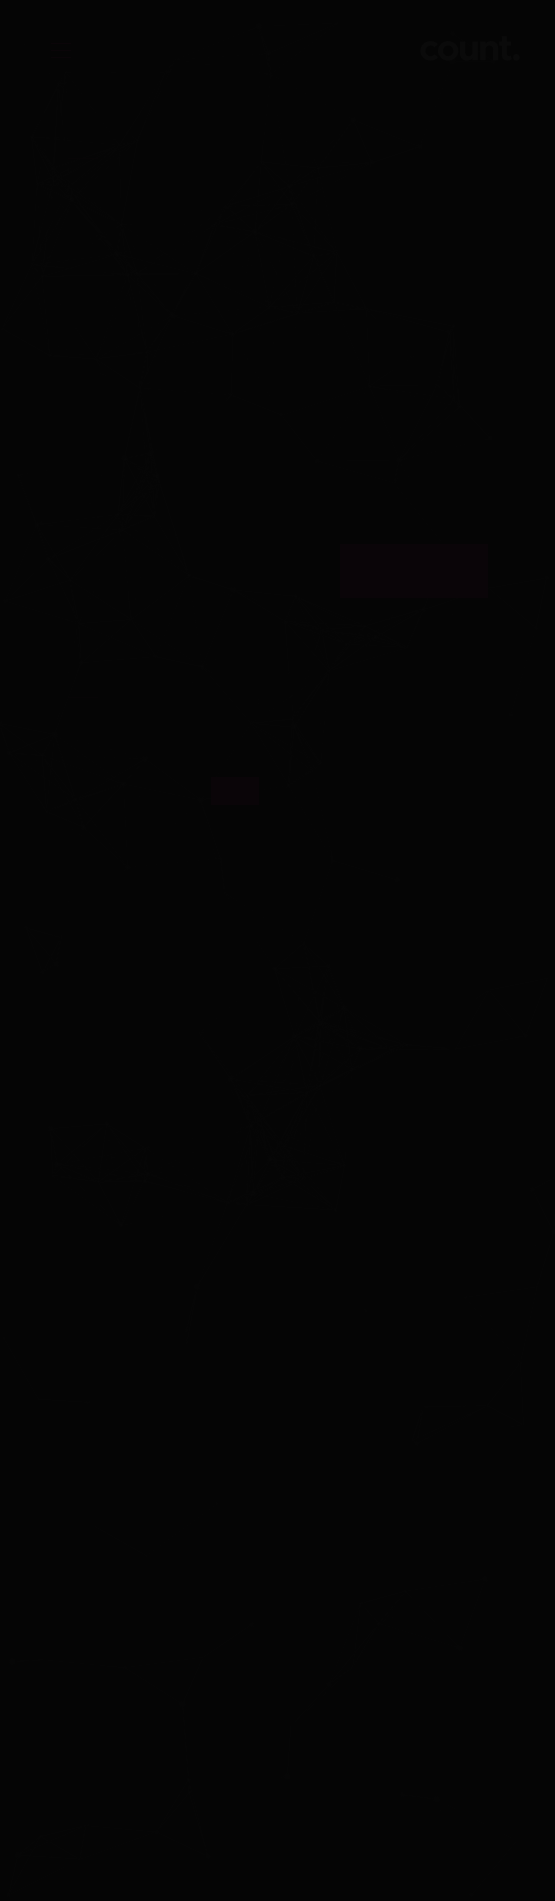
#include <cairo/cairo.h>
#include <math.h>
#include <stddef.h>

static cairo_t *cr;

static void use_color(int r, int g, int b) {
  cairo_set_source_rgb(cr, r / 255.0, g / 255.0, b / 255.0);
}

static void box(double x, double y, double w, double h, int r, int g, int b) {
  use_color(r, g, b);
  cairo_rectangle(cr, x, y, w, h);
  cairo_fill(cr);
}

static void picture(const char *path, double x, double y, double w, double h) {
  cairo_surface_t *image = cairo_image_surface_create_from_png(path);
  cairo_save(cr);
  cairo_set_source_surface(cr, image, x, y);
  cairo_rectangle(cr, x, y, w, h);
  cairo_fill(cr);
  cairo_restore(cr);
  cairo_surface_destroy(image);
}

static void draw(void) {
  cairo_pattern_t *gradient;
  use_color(255, 255, 255);
  cairo_paint(cr);
  gradient = cairo_pattern_create_radial(278, 951, 0, 278, 951, 990);
  cairo_pattern_add_color_stop_rgba(gradient, 0, 0.02, 0.02, 0.02, 1);
  cairo_pattern_add_color_stop_rgba(gradient, 1, 0.02, 0.02, 0.02, 1);
  cairo_set_source(cr, gradient);
  cairo_pattern_destroy(gradient);
  cairo_rectangle(cr, 0, 0, 555, 1901);
  cairo_fill(cr);
  picture("img_01.png", 0, 16, 555, 1881);
  picture("img_02.png", 420, 36, 100, 25);
  cairo_set_source_rgba(cr, 0.039, 0.02, 0.031, 0.6);
  cairo_rectangle(cr, 68, 158, 30, 1);
  cairo_fill(cr);
  box(340, 544, 148, 54, 10, 5, 8);
  cairo_set_source_rgba(cr, 0.039, 0.02, 0.031, 0.6);
  cairo_rectangle(cr, 68, 697, 30, 1);
  cairo_fill(cr);
  box(211, 777, 48, 28, 10, 5, 8);
  box(51, 50, 20, 1, 10, 5, 8);
  box(51, 43, 20, 1, 10, 5, 8);
  box(51, 57, 20, 1, 10, 5, 8);
}

int main(void) {
  cairo_surface_t *surface = cairo_image_surface_create(CAIRO_FORMAT_RGB24, 555, 1901);
  cr = cairo_create(surface);
  cairo_font_options_t *options = cairo_font_options_create();
  cairo_font_options_set_hint_metrics(options, CAIRO_HINT_METRICS_OFF);
  cairo_font_options_set_hint_style(options, CAIRO_HINT_STYLE_NONE);
  cairo_set_font_options(cr, options);
  cairo_set_miter_limit(cr, 4);
  draw();
  cairo_surface_write_to_png(surface, "out.png");
  cairo_font_options_destroy(options);
  cairo_destroy(cr);
  cairo_surface_destroy(surface);
  return 0;
}
